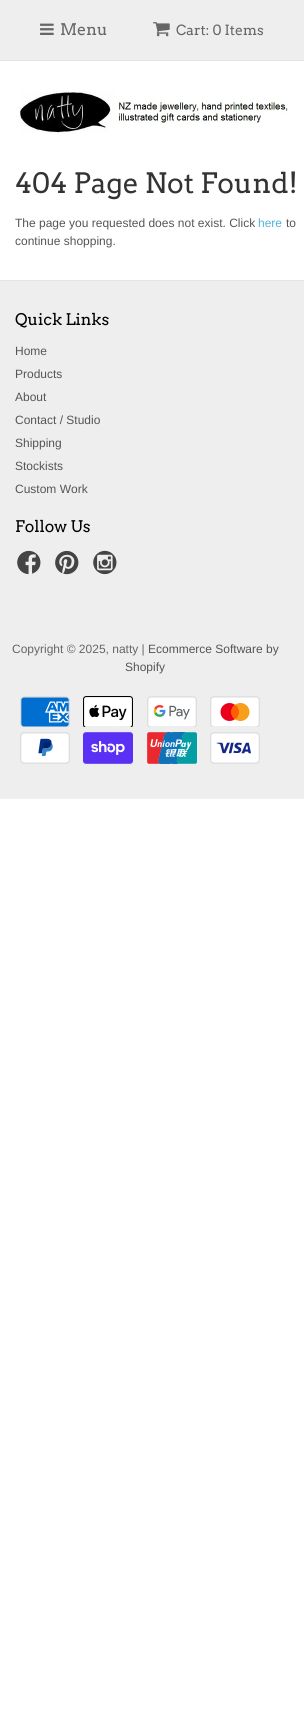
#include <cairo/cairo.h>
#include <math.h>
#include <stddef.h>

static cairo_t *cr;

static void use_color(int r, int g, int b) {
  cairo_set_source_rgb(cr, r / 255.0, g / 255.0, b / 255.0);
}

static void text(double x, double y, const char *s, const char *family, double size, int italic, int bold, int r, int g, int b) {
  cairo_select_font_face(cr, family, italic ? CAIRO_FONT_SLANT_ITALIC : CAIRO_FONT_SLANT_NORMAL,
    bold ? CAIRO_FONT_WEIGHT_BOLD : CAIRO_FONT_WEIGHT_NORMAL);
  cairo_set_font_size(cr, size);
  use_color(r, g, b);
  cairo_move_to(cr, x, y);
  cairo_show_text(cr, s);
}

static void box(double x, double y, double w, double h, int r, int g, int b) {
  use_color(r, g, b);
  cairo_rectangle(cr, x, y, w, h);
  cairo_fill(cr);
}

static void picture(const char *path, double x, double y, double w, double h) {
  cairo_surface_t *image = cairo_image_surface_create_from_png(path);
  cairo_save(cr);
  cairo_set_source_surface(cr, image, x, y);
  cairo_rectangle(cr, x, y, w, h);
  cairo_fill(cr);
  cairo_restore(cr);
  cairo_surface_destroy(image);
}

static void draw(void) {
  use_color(255, 255, 255);
  cairo_paint(cr);
  box(0, 0, 304, 60, 238, 238, 238);
  box(0, 60, 304, 1, 229, 229, 229);
  picture("img_01.png", 40, 23, 14, 12);
  picture("img_02.png", 153, 22, 17, 15);
  picture("img_03.png", 19, 91, 270, 43);
  box(0, 281, 304, 518, 238, 238, 238);
  box(0, 280, 304, 1, 229, 229, 229);
  picture("img_04.png", 17, 550, 24, 25);
  picture("img_05.png", 55, 550, 24, 25);
  picture("img_06.png", 93, 550, 24, 25);
  picture("img_07.png", 20, 696, 50, 31);
  picture("img_08.png", 83, 696, 50, 31);
  picture("img_09.png", 147, 696, 50, 31);
  picture("img_10.png", 210, 696, 50, 31);
  picture("img_11.png", 20, 732, 50, 32);
  picture("img_12.png", 83, 732, 50, 32);
  picture("img_13.png", 147, 732, 50, 32);
  picture("img_14.png", 210, 732, 50, 32);
  text(60, 35, "Menu", "Arvo", 16, 0, 0, 102, 102, 102);
  text(176, 35, "Cart: 0 Items", "Arvo", 14, 0, 0, 102, 102, 102);
  text(15, 193, "404 Page Not Found!", "Arvo", 28, 0, 0, 51, 51, 51);
  text(15, 227, "The page you requested does not exist. Click", "Liberation Sans", 12, 0, 0, 85, 85, 85);
  text(258, 227, "here", "Liberation Sans", 12, 0, 0, 80, 179, 218);
  text(286, 227, "to", "Liberation Sans", 12, 0, 0, 85, 85, 85);
  text(15, 245, "continue shopping.", "Liberation Sans", 12, 0, 0, 85, 85, 85);
  text(15, 325, "Quick Links", "Arvo", 16, 0, 0, 0, 0, 0);
  text(15, 355, "Home", "Liberation Sans", 12, 0, 0, 85, 85, 85);
  text(15, 378, "Products", "Liberation Sans", 12, 0, 0, 85, 85, 85);
  text(15, 401, "About", "Liberation Sans", 12, 0, 0, 85, 85, 85);
  text(15, 424, "Contact / Studio", "Liberation Sans", 12, 0, 0, 85, 85, 85);
  text(15, 447, "Shipping", "Liberation Sans", 12, 0, 0, 85, 85, 85);
  text(15, 470, "Stockists", "Liberation Sans", 12, 0, 0, 85, 85, 85);
  text(15, 493, "Custom Work", "Liberation Sans", 12, 0, 0, 85, 85, 85);
  text(15, 532, "Follow Us", "Arvo", 16, 0, 0, 0, 0, 0);
  text(12, 653, "Copyright © 2025, natty |", "Liberation Sans", 12, 0, 0, 102, 102, 102);
  text(148, 653, "Ecommerce Software by", "Liberation Sans", 12, 0, 0, 85, 85, 85);
  text(125, 671, "Shopify", "Liberation Sans", 12, 0, 0, 85, 85, 85);
}

int main(void) {
  cairo_surface_t *surface = cairo_image_surface_create(CAIRO_FORMAT_RGB24, 304, 1719);
  cr = cairo_create(surface);
  cairo_font_options_t *options = cairo_font_options_create();
  cairo_font_options_set_hint_metrics(options, CAIRO_HINT_METRICS_OFF);
  cairo_font_options_set_hint_style(options, CAIRO_HINT_STYLE_NONE);
  cairo_set_font_options(cr, options);
  cairo_set_miter_limit(cr, 4);
  draw();
  cairo_surface_write_to_png(surface, "out.png");
  cairo_font_options_destroy(options);
  cairo_destroy(cr);
  cairo_surface_destroy(surface);
  return 0;
}
